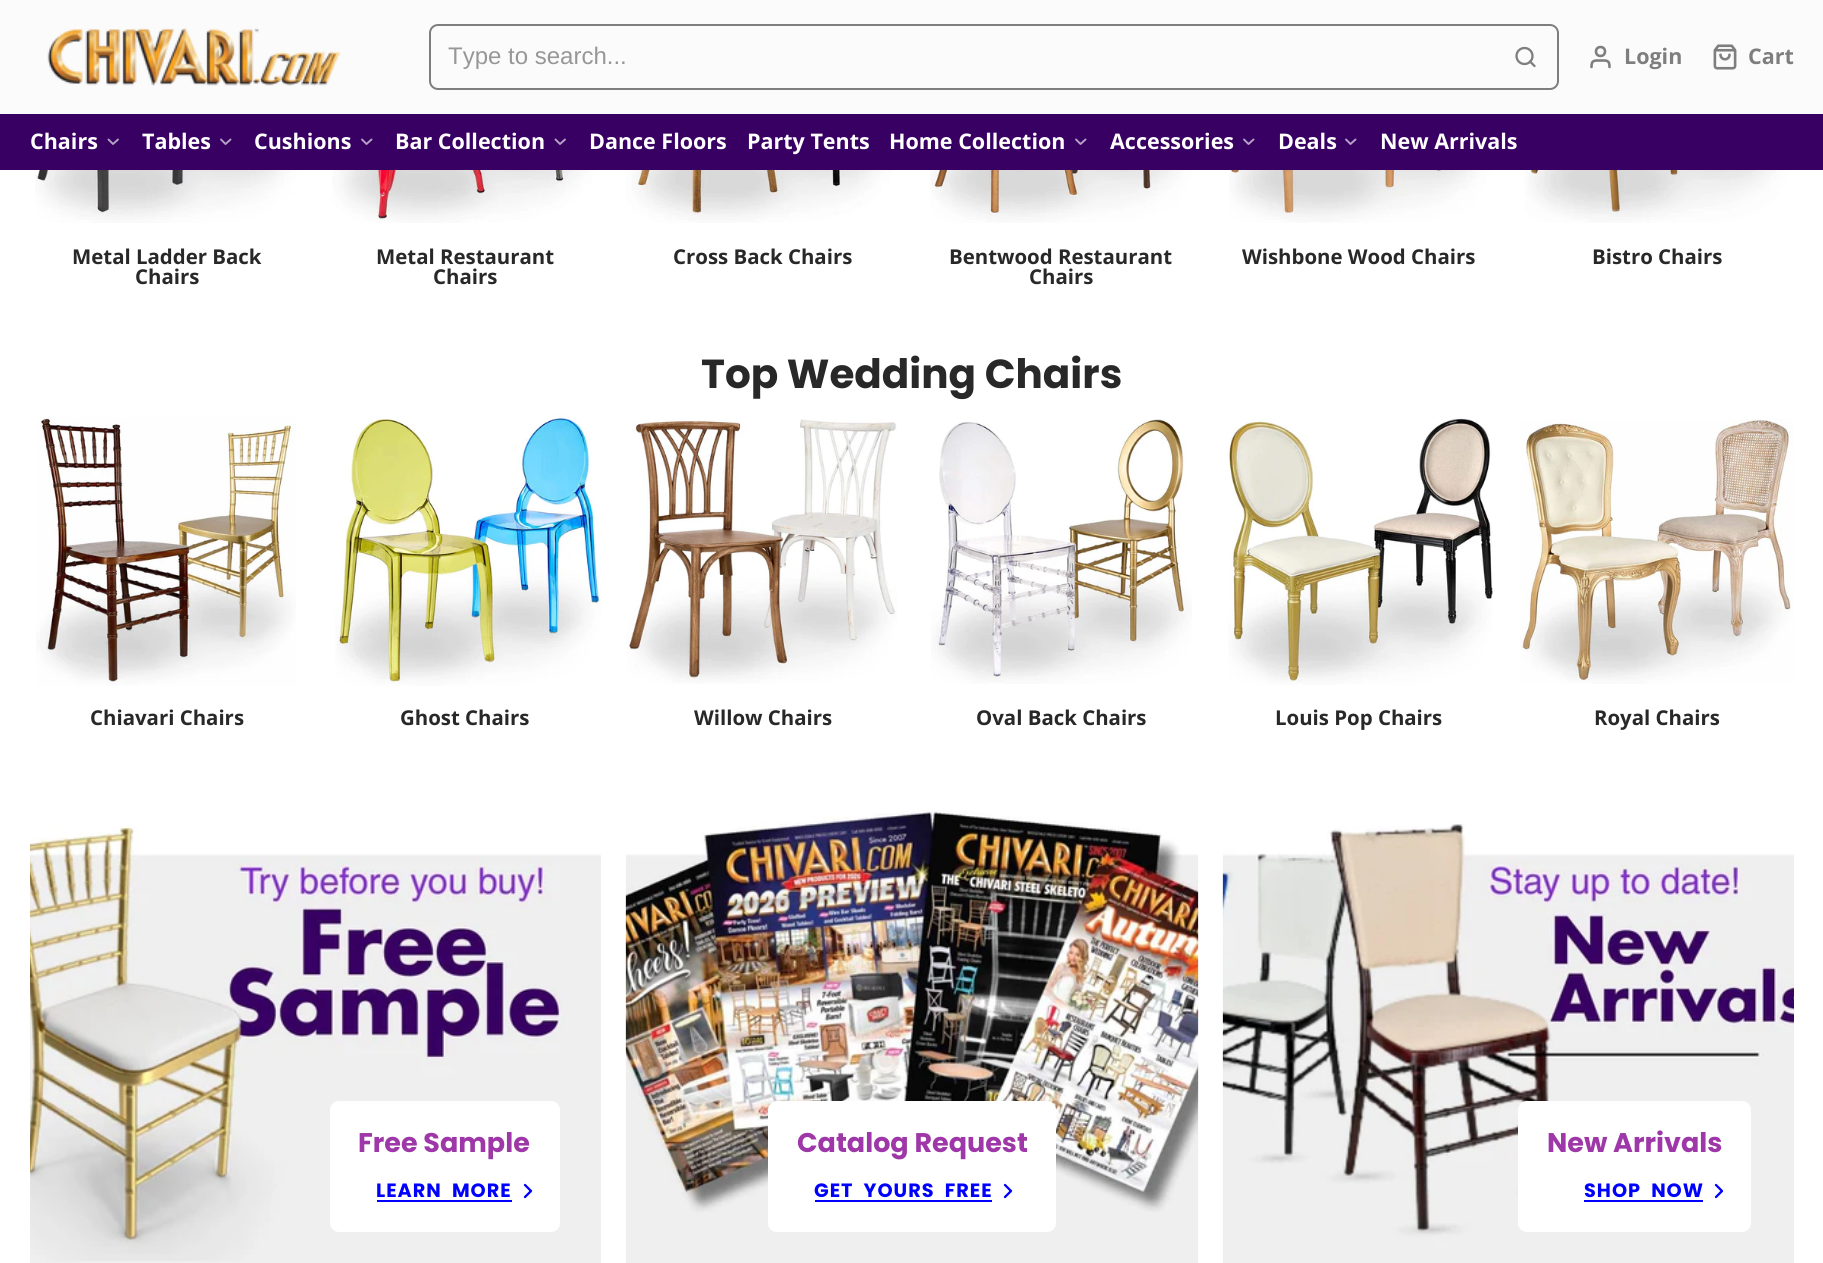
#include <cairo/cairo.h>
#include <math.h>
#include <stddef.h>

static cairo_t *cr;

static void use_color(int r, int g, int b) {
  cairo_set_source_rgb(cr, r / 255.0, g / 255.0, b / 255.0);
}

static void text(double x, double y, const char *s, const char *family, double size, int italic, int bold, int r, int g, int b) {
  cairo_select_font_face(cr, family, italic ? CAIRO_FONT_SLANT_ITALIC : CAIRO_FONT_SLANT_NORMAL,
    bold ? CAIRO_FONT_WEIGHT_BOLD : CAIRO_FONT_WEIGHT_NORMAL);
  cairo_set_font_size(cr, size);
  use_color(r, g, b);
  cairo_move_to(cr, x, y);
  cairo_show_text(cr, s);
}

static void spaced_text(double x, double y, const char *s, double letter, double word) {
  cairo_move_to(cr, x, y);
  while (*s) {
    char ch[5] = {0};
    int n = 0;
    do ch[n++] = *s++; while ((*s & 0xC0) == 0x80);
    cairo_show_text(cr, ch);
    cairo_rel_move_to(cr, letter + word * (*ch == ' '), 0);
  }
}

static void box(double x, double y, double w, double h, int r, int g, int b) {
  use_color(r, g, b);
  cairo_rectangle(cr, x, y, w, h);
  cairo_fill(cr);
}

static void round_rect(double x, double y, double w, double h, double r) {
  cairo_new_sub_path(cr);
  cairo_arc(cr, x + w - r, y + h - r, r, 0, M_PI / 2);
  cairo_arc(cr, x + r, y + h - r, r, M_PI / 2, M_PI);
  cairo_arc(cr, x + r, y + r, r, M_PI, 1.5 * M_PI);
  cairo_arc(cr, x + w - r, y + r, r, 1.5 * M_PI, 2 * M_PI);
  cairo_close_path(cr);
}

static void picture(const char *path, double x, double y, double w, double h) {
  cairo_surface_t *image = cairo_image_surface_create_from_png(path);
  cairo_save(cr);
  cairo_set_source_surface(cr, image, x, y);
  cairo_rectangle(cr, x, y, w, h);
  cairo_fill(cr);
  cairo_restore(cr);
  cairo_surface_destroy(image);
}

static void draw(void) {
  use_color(255, 255, 255);
  cairo_paint(cr);
  box(0, 0, 1823, 114, 251, 251, 251);
  picture("img_01.png", 47, 27, 294, 59);
  round_rect(430, 25, 1128, 64, 8);
  use_color(126, 126, 126);
  cairo_stroke(cr);
  cairo_arc(cr, 1524.5, 56, 8, 0, 2 * M_PI);
  cairo_set_line_width(cr, 2.3);
  cairo_stroke(cr);
  cairo_new_path(cr);
  cairo_move_to(cr, 1534.5, 66);
  cairo_line_to(cr, 1530, 61.5);
  cairo_set_line_cap(cr, CAIRO_LINE_CAP_ROUND);
  cairo_set_line_join(cr, CAIRO_LINE_JOIN_ROUND);
  cairo_stroke(cr);
  cairo_new_path(cr);
  cairo_move_to(cr, 1609.5, 67);
  cairo_curve_to(cr, 1609.5, 60, 1607, 60.5, 1600.5, 60.5);
  cairo_curve_to(cr, 1594, 60.5, 1591.5, 60, 1591.5, 67);
  cairo_set_line_width(cr, 2.6);
  cairo_stroke(cr);
  cairo_arc(cr, 1600.5, 51.5, 4.5, 0, 2 * M_PI);
  cairo_set_line_cap(cr, CAIRO_LINE_CAP_BUTT);
  cairo_set_line_join(cr, CAIRO_LINE_JOIN_MITER);
  cairo_stroke(cr);
  picture("img_02.png", 1713, 44, 24, 26);
  box(0, 114, 1823, 56, 56, 0, 99);
  cairo_new_path(cr);
  cairo_move_to(cr, 108.5, 139.5);
  cairo_line_to(cr, 113, 144);
  cairo_line_to(cr, 118, 139.5);
  use_color(183, 163, 199);
  cairo_set_line_width(cr, 1.9);
  cairo_set_line_cap(cr, CAIRO_LINE_CAP_ROUND);
  cairo_set_line_join(cr, CAIRO_LINE_JOIN_ROUND);
  cairo_stroke(cr);
  cairo_new_path(cr);
  cairo_move_to(cr, 221, 139.5);
  cairo_line_to(cr, 225.5, 144);
  cairo_line_to(cr, 230.5, 139.5);
  cairo_stroke(cr);
  cairo_new_path(cr);
  cairo_move_to(cr, 362, 139.5);
  cairo_line_to(cr, 366.5, 144);
  cairo_line_to(cr, 371.5, 139.5);
  cairo_stroke(cr);
  cairo_new_path(cr);
  cairo_move_to(cr, 555.5, 139.5);
  cairo_line_to(cr, 560, 144);
  cairo_line_to(cr, 565, 139.5);
  cairo_stroke(cr);
  cairo_new_path(cr);
  cairo_move_to(cr, 1076, 139.5);
  cairo_line_to(cr, 1080.5, 144);
  cairo_line_to(cr, 1085.5, 139.5);
  cairo_stroke(cr);
  cairo_new_path(cr);
  cairo_move_to(cr, 1244, 139.5);
  cairo_line_to(cr, 1248.5, 144);
  cairo_line_to(cr, 1253.5, 139.5);
  cairo_stroke(cr);
  cairo_new_path(cr);
  cairo_move_to(cr, 1346, 139.5);
  cairo_line_to(cr, 1350.5, 144);
  cairo_line_to(cr, 1355.5, 139.5);
  cairo_stroke(cr);
  picture("img_03.png", 35, 170, 263, 53);
  picture("img_04.png", 332, 170, 265, 53);
  picture("img_05.png", 625, 170, 268, 53);
  picture("img_06.png", 930, 170, 262, 53);
  picture("img_07.png", 1229, 170, 262, 53);
  picture("img_08.png", 1525, 170, 262, 53);
  picture("img_09.png", 36, 417, 260, 269);
  picture("img_10.png", 335, 414, 266, 272);
  picture("img_11.png", 627, 419, 270, 265);
  picture("img_12.png", 931, 419, 261, 265);
  picture("img_13.png", 1228, 418, 265, 267);
  picture("img_14.png", 1520, 419, 274, 265);
  picture("img_15.png", 30, 826, 571, 437);
  use_color(255, 255, 255);
  round_rect(330, 1101, 230, 131, 9);
  cairo_fill(cr);
  box(377, 1200, 135, 2, 0, 0, 255);
  cairo_new_path(cr);
  cairo_move_to(cr, 525, 1197);
  cairo_line_to(cr, 531, 1191);
  cairo_line_to(cr, 525, 1185);
  cairo_set_line_width(cr, 2.3);
  cairo_stroke(cr);
  picture("img_16.png", 625, 810, 574, 453);
  use_color(255, 255, 255);
  round_rect(768, 1101, 288, 131, 9);
  cairo_fill(cr);
  box(815, 1200, 177, 2, 0, 0, 255);
  cairo_new_path(cr);
  cairo_move_to(cr, 1005, 1197);
  cairo_line_to(cr, 1011, 1191);
  cairo_line_to(cr, 1005, 1185);
  cairo_stroke(cr);
  picture("img_17.png", 1222, 822, 572, 441);
  use_color(255, 255, 255);
  round_rect(1518, 1101, 233, 131, 9);
  cairo_fill(cr);
  box(1584, 1200, 119, 2, 0, 0, 255);
  cairo_new_path(cr);
  cairo_move_to(cr, 1716, 1197);
  cairo_line_to(cr, 1722, 1191);
  cairo_line_to(cr, 1716, 1185);
  cairo_stroke(cr);
  text(448, 64, "Type to search...", "Liberation Sans", 24, 0, 0, 151, 151, 151);
  text(1624, 64, "Login", "Open Sans", 21.5, 0, 1, 126, 126, 126);
  text(1748, 64, "Cart", "Open Sans", 21.5, 0, 1, 126, 126, 126);
  text(30, 149, "Chairs", "Open Sans", 21.5, 0, 1, 255, 255, 255);
  text(142, 149, "Tables", "Open Sans", 21.5, 0, 1, 255, 255, 255);
  text(254, 149, "Cushions", "Open Sans", 21.5, 0, 1, 255, 255, 255);
  text(395, 149, "Bar Collection", "Open Sans", 21.5, 0, 1, 255, 255, 255);
  text(589, 149, "Dance Floors", "Open Sans", 21.5, 0, 1, 255, 255, 255);
  text(747, 149, "Party Tents", "Open Sans", 21.5, 0, 1, 255, 255, 255);
  text(889, 149, "Home Collection", "Open Sans", 21.5, 0, 1, 255, 255, 255);
  text(1110, 149, "Accessories", "Open Sans", 21.5, 0, 1, 255, 255, 255);
  text(1278, 149, "Deals", "Open Sans", 21.5, 0, 1, 255, 255, 255);
  text(1380, 149, "New Arrivals", "Open Sans", 21.5, 0, 1, 255, 255, 255);
  text(72, 264, "Metal Ladder Back", "Open Sans", 20.4, 0, 1, 40, 40, 40);
  text(135, 284, "Chairs", "Open Sans", 20.4, 0, 1, 40, 40, 40);
  text(376, 264, "Metal Restaurant", "Open Sans", 20.4, 0, 1, 40, 40, 40);
  text(433, 284, "Chairs", "Open Sans", 20.4, 0, 1, 40, 40, 40);
  text(673, 264, "Cross Back Chairs", "Open Sans", 20.4, 0, 1, 40, 40, 40);
  text(949, 264, "Bentwood Restaurant", "Open Sans", 20.4, 0, 1, 40, 40, 40);
  text(1029, 284, "Chairs", "Open Sans", 20.4, 0, 1, 40, 40, 40);
  text(1242, 264, "Wishbone Wood Chairs", "Open Sans", 20.4, 0, 1, 40, 40, 40);
  text(1592, 264, "Bistro Chairs", "Open Sans", 20.4, 0, 1, 40, 40, 40);
  text(701, 388, "Top Wedding Chairs", "Poppins", 40.5, 0, 1, 40, 40, 40);
  text(90, 725, "Chiavari Chairs", "Open Sans", 20.4, 0, 1, 40, 40, 40);
  text(400, 725, "Ghost Chairs", "Open Sans", 20.4, 0, 1, 40, 40, 40);
  text(694, 725, "Willow Chairs", "Open Sans", 20.4, 0, 1, 40, 40, 40);
  text(976, 725, "Oval Back Chairs", "Open Sans", 20.4, 0, 1, 40, 40, 40);
  text(1275, 725, "Louis Pop Chairs", "Open Sans", 20.4, 0, 1, 40, 40, 40);
  text(1594, 725, "Royal Chairs", "Open Sans", 20.4, 0, 1, 40, 40, 40);
  text(358, 1152, "Free Sample", "Poppins", 27, 0, 1, 158, 55, 167);
  cairo_set_font_size(cr, 19.25);
  use_color(0, 0, 255);
  spaced_text(376, 1197, "LEARN MORE", 1, 5);
  text(797, 1152, "Catalog Request", "Poppins", 27, 0, 1, 158, 55, 167);
  cairo_set_font_size(cr, 19.25);
  use_color(0, 0, 255);
  spaced_text(814, 1197, "GET YOURS FREE", 1, 5);
  text(1547, 1152, "New Arrivals", "Poppins", 27, 0, 1, 158, 55, 167);
  cairo_set_font_size(cr, 19.25);
  use_color(0, 0, 255);
  spaced_text(1584, 1197, "SHOP NOW", 1, 5);
}

int main(void) {
  cairo_surface_t *surface = cairo_image_surface_create(CAIRO_FORMAT_RGB24, 1823, 1263);
  cr = cairo_create(surface);
  cairo_font_options_t *options = cairo_font_options_create();
  cairo_font_options_set_hint_metrics(options, CAIRO_HINT_METRICS_OFF);
  cairo_font_options_set_hint_style(options, CAIRO_HINT_STYLE_NONE);
  cairo_set_font_options(cr, options);
  cairo_set_miter_limit(cr, 4);
  draw();
  cairo_surface_write_to_png(surface, "out.png");
  cairo_font_options_destroy(options);
  cairo_destroy(cr);
  cairo_surface_destroy(surface);
  return 0;
}
